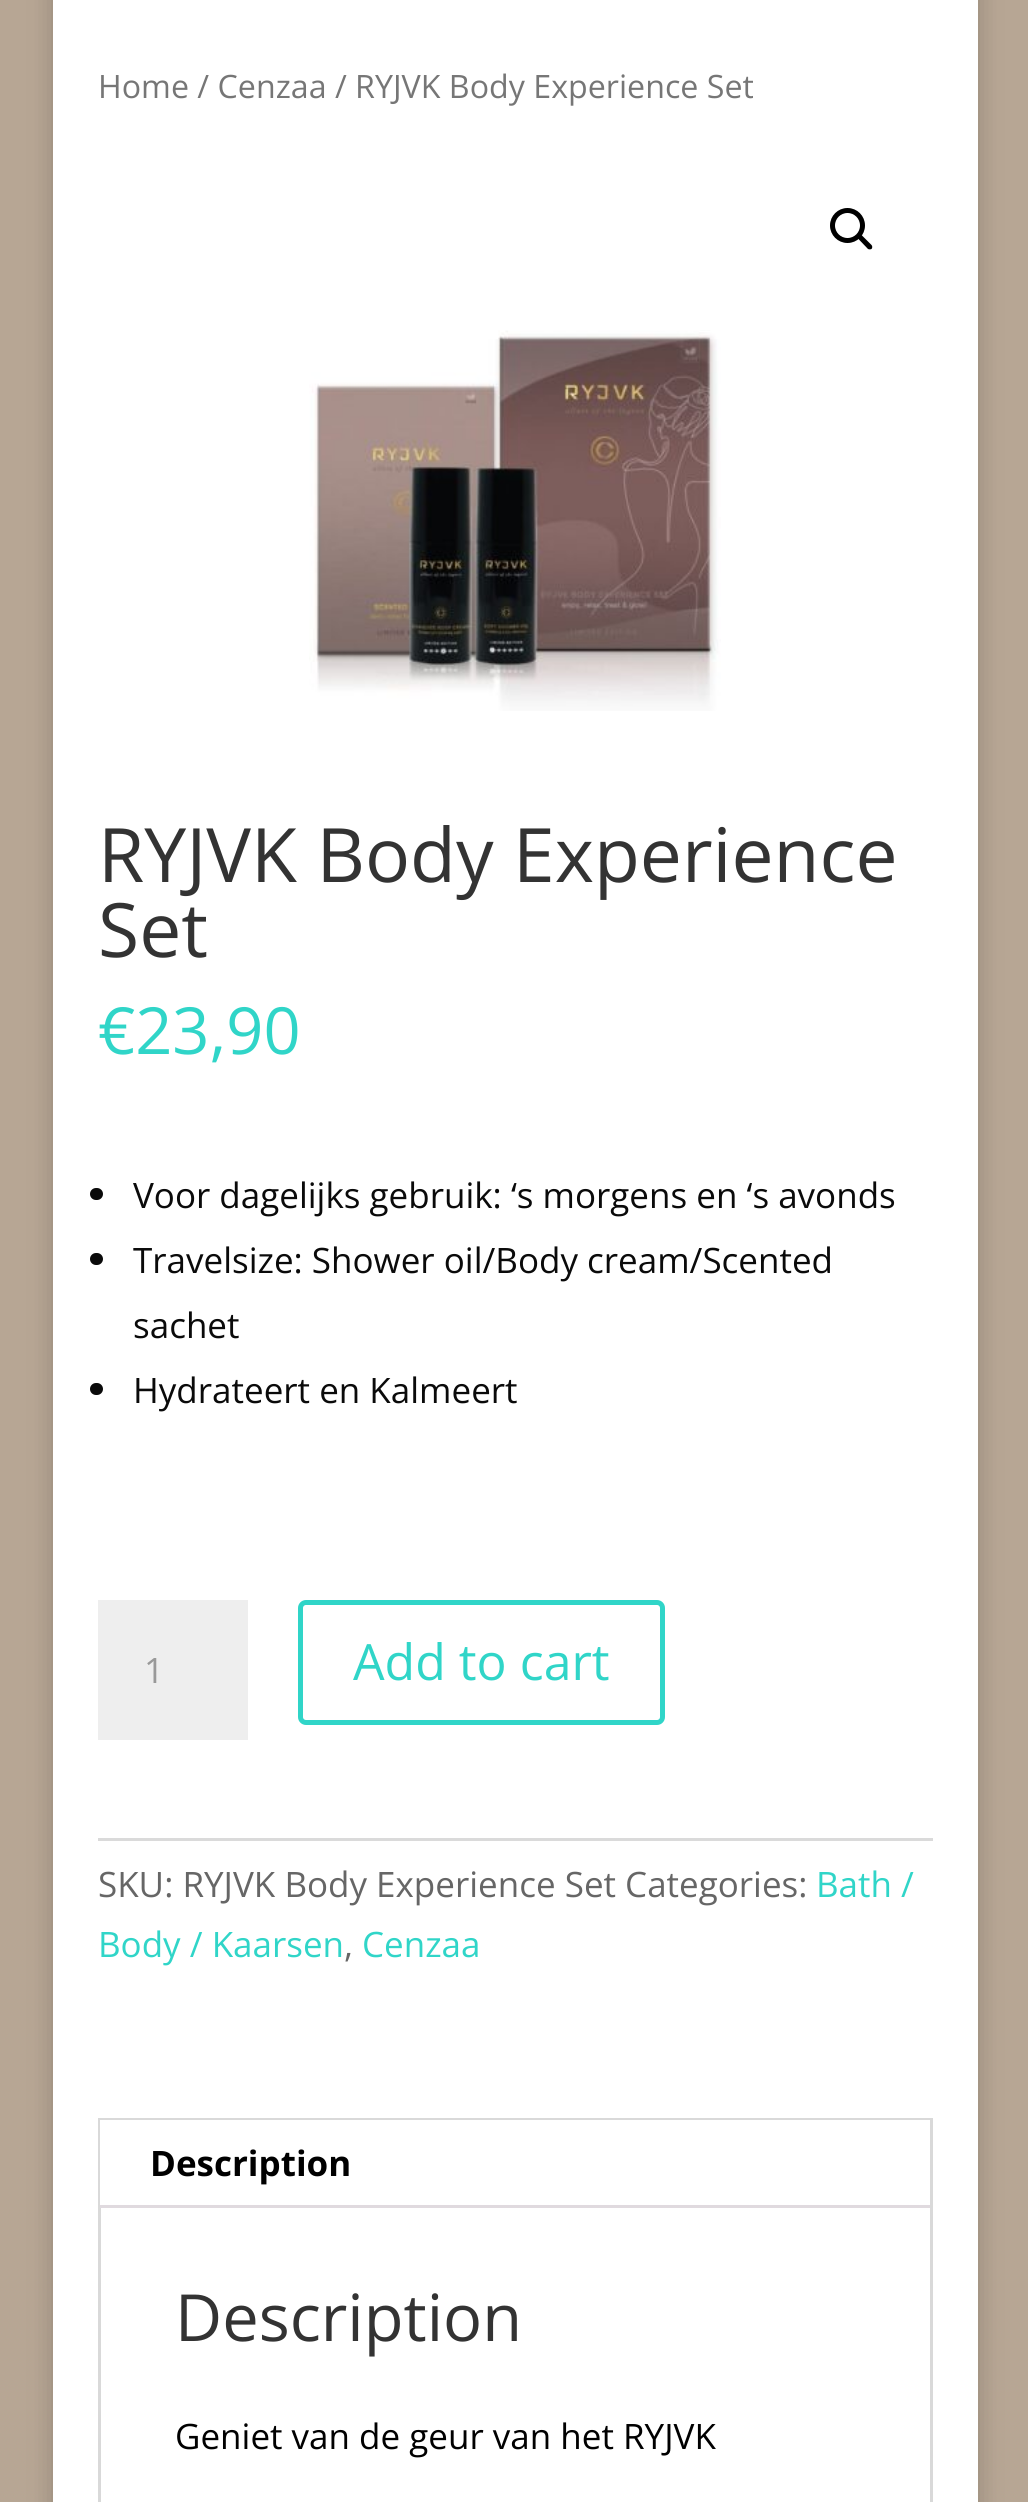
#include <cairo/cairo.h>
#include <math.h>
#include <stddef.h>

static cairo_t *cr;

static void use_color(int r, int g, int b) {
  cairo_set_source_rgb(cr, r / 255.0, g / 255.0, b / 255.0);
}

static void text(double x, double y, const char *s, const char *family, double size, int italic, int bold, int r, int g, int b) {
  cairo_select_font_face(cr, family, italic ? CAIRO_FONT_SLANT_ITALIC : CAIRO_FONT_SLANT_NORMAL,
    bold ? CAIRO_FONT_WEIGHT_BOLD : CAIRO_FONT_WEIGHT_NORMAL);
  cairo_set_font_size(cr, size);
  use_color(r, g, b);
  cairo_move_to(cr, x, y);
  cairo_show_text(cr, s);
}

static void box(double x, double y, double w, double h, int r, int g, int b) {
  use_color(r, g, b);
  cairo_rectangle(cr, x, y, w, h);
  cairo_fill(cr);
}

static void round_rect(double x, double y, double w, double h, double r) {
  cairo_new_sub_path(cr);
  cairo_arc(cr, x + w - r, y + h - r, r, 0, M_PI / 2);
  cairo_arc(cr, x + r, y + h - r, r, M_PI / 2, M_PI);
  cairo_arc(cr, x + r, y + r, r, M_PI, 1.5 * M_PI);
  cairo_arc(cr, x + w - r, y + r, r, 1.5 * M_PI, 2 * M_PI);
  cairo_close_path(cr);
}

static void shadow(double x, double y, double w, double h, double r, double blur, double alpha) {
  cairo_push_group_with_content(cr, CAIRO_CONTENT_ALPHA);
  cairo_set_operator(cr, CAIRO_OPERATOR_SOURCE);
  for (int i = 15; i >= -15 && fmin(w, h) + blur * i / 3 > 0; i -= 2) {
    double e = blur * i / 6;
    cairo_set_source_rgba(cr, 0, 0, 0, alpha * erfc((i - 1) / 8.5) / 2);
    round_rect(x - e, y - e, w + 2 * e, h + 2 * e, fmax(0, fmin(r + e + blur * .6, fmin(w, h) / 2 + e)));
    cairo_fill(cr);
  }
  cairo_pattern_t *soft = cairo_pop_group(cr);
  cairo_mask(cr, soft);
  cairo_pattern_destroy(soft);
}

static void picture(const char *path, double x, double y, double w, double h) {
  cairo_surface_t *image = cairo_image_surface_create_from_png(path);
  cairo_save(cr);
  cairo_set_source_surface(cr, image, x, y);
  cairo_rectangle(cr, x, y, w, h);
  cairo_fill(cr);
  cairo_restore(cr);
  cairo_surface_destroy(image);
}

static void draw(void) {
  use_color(183, 166, 148);
  cairo_paint(cr);
  use_color(0, 0, 0);
  shadow(53, -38, 925, 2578, 0, 12.5, 0.2);
  box(53, 0, 925, 2502, 255, 255, 255);
  cairo_arc(cr, 847.5, 225.5, 15, 0, 2 * M_PI);
  use_color(0, 0, 0);
  cairo_set_line_width(cr, 5);
  cairo_stroke(cr);
  cairo_new_path(cr);
  cairo_move_to(cr, 857.5, 234.5);
  cairo_curve_to(cr, 858.5, 233.5, 860, 233.5, 861, 234.5);
  cairo_line_to(cr, 871.5, 245);
  cairo_curve_to(cr, 872.5, 246, 872.5, 248, 871.5, 249);
  cairo_curve_to(cr, 870.5, 249.5, 869, 249.5, 868, 249);
  cairo_line_to(cr, 857.5, 238);
  cairo_curve_to(cr, 856.5, 237, 856.5, 235.5, 857.5, 234.5);
  cairo_close_path(cr);
  cairo_fill(cr);
  picture("img_01.png", 309, 330, 412, 381);
  use_color(10, 10, 10);
  round_rect(90, 1188, 13, 12, 6);
  cairo_fill(cr);
  round_rect(90, 1253, 13, 12, 6);
  cairo_fill(cr);
  round_rect(90, 1383, 13, 12, 6);
  cairo_fill(cr);
  box(98, 1600, 150, 140, 238, 238, 238);
  round_rect(300.5, 1602.5, 362, 120, 5.5);
  use_color(48, 213, 200);
  cairo_stroke(cr);
  box(98, 1838, 835, 3, 218, 218, 218);
  cairo_rectangle(cr, 99.5, 2119.5, 832, 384);
  use_color(217, 217, 217);
  cairo_set_line_width(cr, 3);
  cairo_stroke(cr);
  box(100, 2120, 830, 85, 255, 255, 255);
  box(100, 2205, 830, 3, 224, 218, 223);
  text(98, 98, "Home / Cenzaa / RYJVK Body Experience Set", "Open Sans", 32.2, 0, 0, 118, 118, 118);
  text(98, 882, "RYJVK Body Experience", "Open Sans", 75, 0, 0, 51, 51, 51);
  text(98, 957, "Set", "Open Sans", 75, 0, 0, 51, 51, 51);
  text(98, 1054, "€23,90", "Open Sans", 65, 0, 0, 48, 213, 200);
  text(133, 1208, "Voor dagelijks gebruik: ‘s morgens en ‘s avonds", "Open Sans", 35, 0, 0, 10, 10, 10);
  text(133, 1273, "Travelsize: Shower oil/Body cream/Scented", "Open Sans", 35, 0, 0, 10, 10, 10);
  text(133, 1338, "sachet", "Open Sans", 35, 0, 0, 10, 10, 10);
  text(133, 1403, "Hydrateert en Kalmeert", "Open Sans", 35, 0, 0, 10, 10, 10);
  text(144, 1683, "1", "Open Sans", 35, 0, 0, 153, 153, 153);
  text(353, 1680, "Add to cart", "Open Sans", 50, 0, 0, 48, 213, 200);
  text(98, 1897, "SKU: RYJVK Body Experience Set Categories:", "Open Sans", 35, 0, 0, 102, 102, 102);
  text(816, 1897, "Bath /", "Open Sans", 35, 0, 0, 48, 213, 200);
  text(98, 1957, "Body / Kaarsen", "Open Sans", 35, 0, 0, 48, 213, 200);
  text(344, 1957, ",", "Open Sans", 35, 0, 0, 102, 102, 102);
  text(362, 1957, "Cenzaa", "Open Sans", 35, 0, 0, 48, 213, 200);
  text(150, 2176, "Description", "Open Sans", 35, 0, 1, 0, 0, 0);
  text(175, 2341, "Description", "Open Sans", 65, 0, 0, 51, 51, 51);
  text(175, 2449, "Geniet van de geur van het RYJVK", "Open Sans", 35, 0, 0, 0, 0, 0);
}

int main(void) {
  cairo_surface_t *surface = cairo_image_surface_create(CAIRO_FORMAT_RGB24, 1028, 2502);
  cr = cairo_create(surface);
  cairo_font_options_t *options = cairo_font_options_create();
  cairo_font_options_set_hint_metrics(options, CAIRO_HINT_METRICS_OFF);
  cairo_font_options_set_hint_style(options, CAIRO_HINT_STYLE_NONE);
  cairo_set_font_options(cr, options);
  cairo_set_miter_limit(cr, 4);
  draw();
  cairo_surface_write_to_png(surface, "out.png");
  cairo_font_options_destroy(options);
  cairo_destroy(cr);
  cairo_surface_destroy(surface);
  return 0;
}
